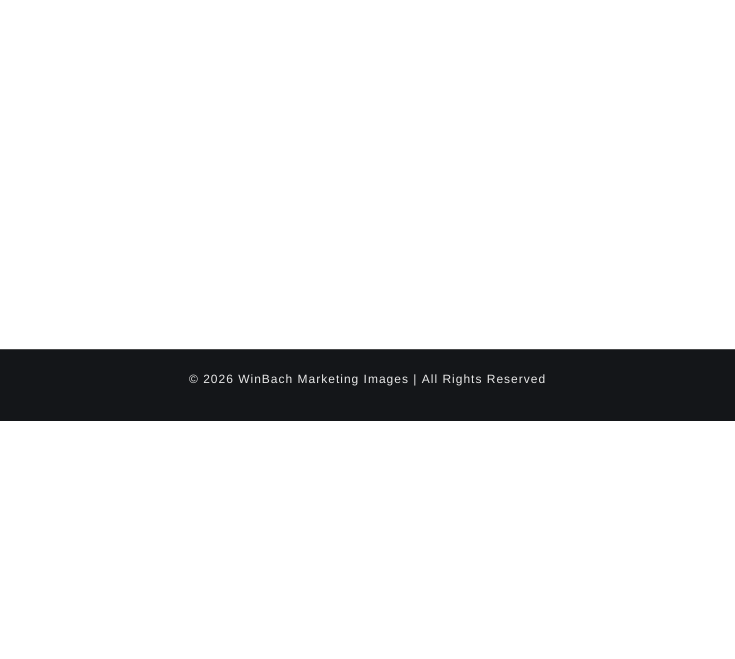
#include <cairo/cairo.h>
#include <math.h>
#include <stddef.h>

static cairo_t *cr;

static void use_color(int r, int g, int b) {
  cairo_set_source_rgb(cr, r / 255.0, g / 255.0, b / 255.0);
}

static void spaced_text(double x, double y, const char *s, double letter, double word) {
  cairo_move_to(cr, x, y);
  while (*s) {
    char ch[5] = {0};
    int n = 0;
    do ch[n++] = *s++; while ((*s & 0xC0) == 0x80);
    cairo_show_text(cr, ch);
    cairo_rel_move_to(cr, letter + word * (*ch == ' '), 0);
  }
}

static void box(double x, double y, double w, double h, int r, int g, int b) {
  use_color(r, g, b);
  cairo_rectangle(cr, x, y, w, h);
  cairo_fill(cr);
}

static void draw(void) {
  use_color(255, 255, 255);
  cairo_paint(cr);
  box(0, 350, 735, 71, 20, 22, 25);
  box(0, 349, 735, 1, 75, 76, 77);
  cairo_select_font_face(cr, "Liberation Sans", CAIRO_FONT_SLANT_NORMAL, CAIRO_FONT_WEIGHT_NORMAL);
  cairo_set_font_size(cr, 12);
  use_color(232, 232, 232);
  spaced_text(189, 383, "© 2026 WinBach Marketing Images | All Rights Reserved", 1, 0);
}

int main(void) {
  cairo_surface_t *surface = cairo_image_surface_create(CAIRO_FORMAT_RGB24, 735, 659);
  cr = cairo_create(surface);
  cairo_font_options_t *options = cairo_font_options_create();
  cairo_font_options_set_hint_metrics(options, CAIRO_HINT_METRICS_OFF);
  cairo_font_options_set_hint_style(options, CAIRO_HINT_STYLE_NONE);
  cairo_set_font_options(cr, options);
  cairo_set_miter_limit(cr, 4);
  draw();
  cairo_surface_write_to_png(surface, "out.png");
  cairo_font_options_destroy(options);
  cairo_destroy(cr);
  cairo_surface_destroy(surface);
  return 0;
}
